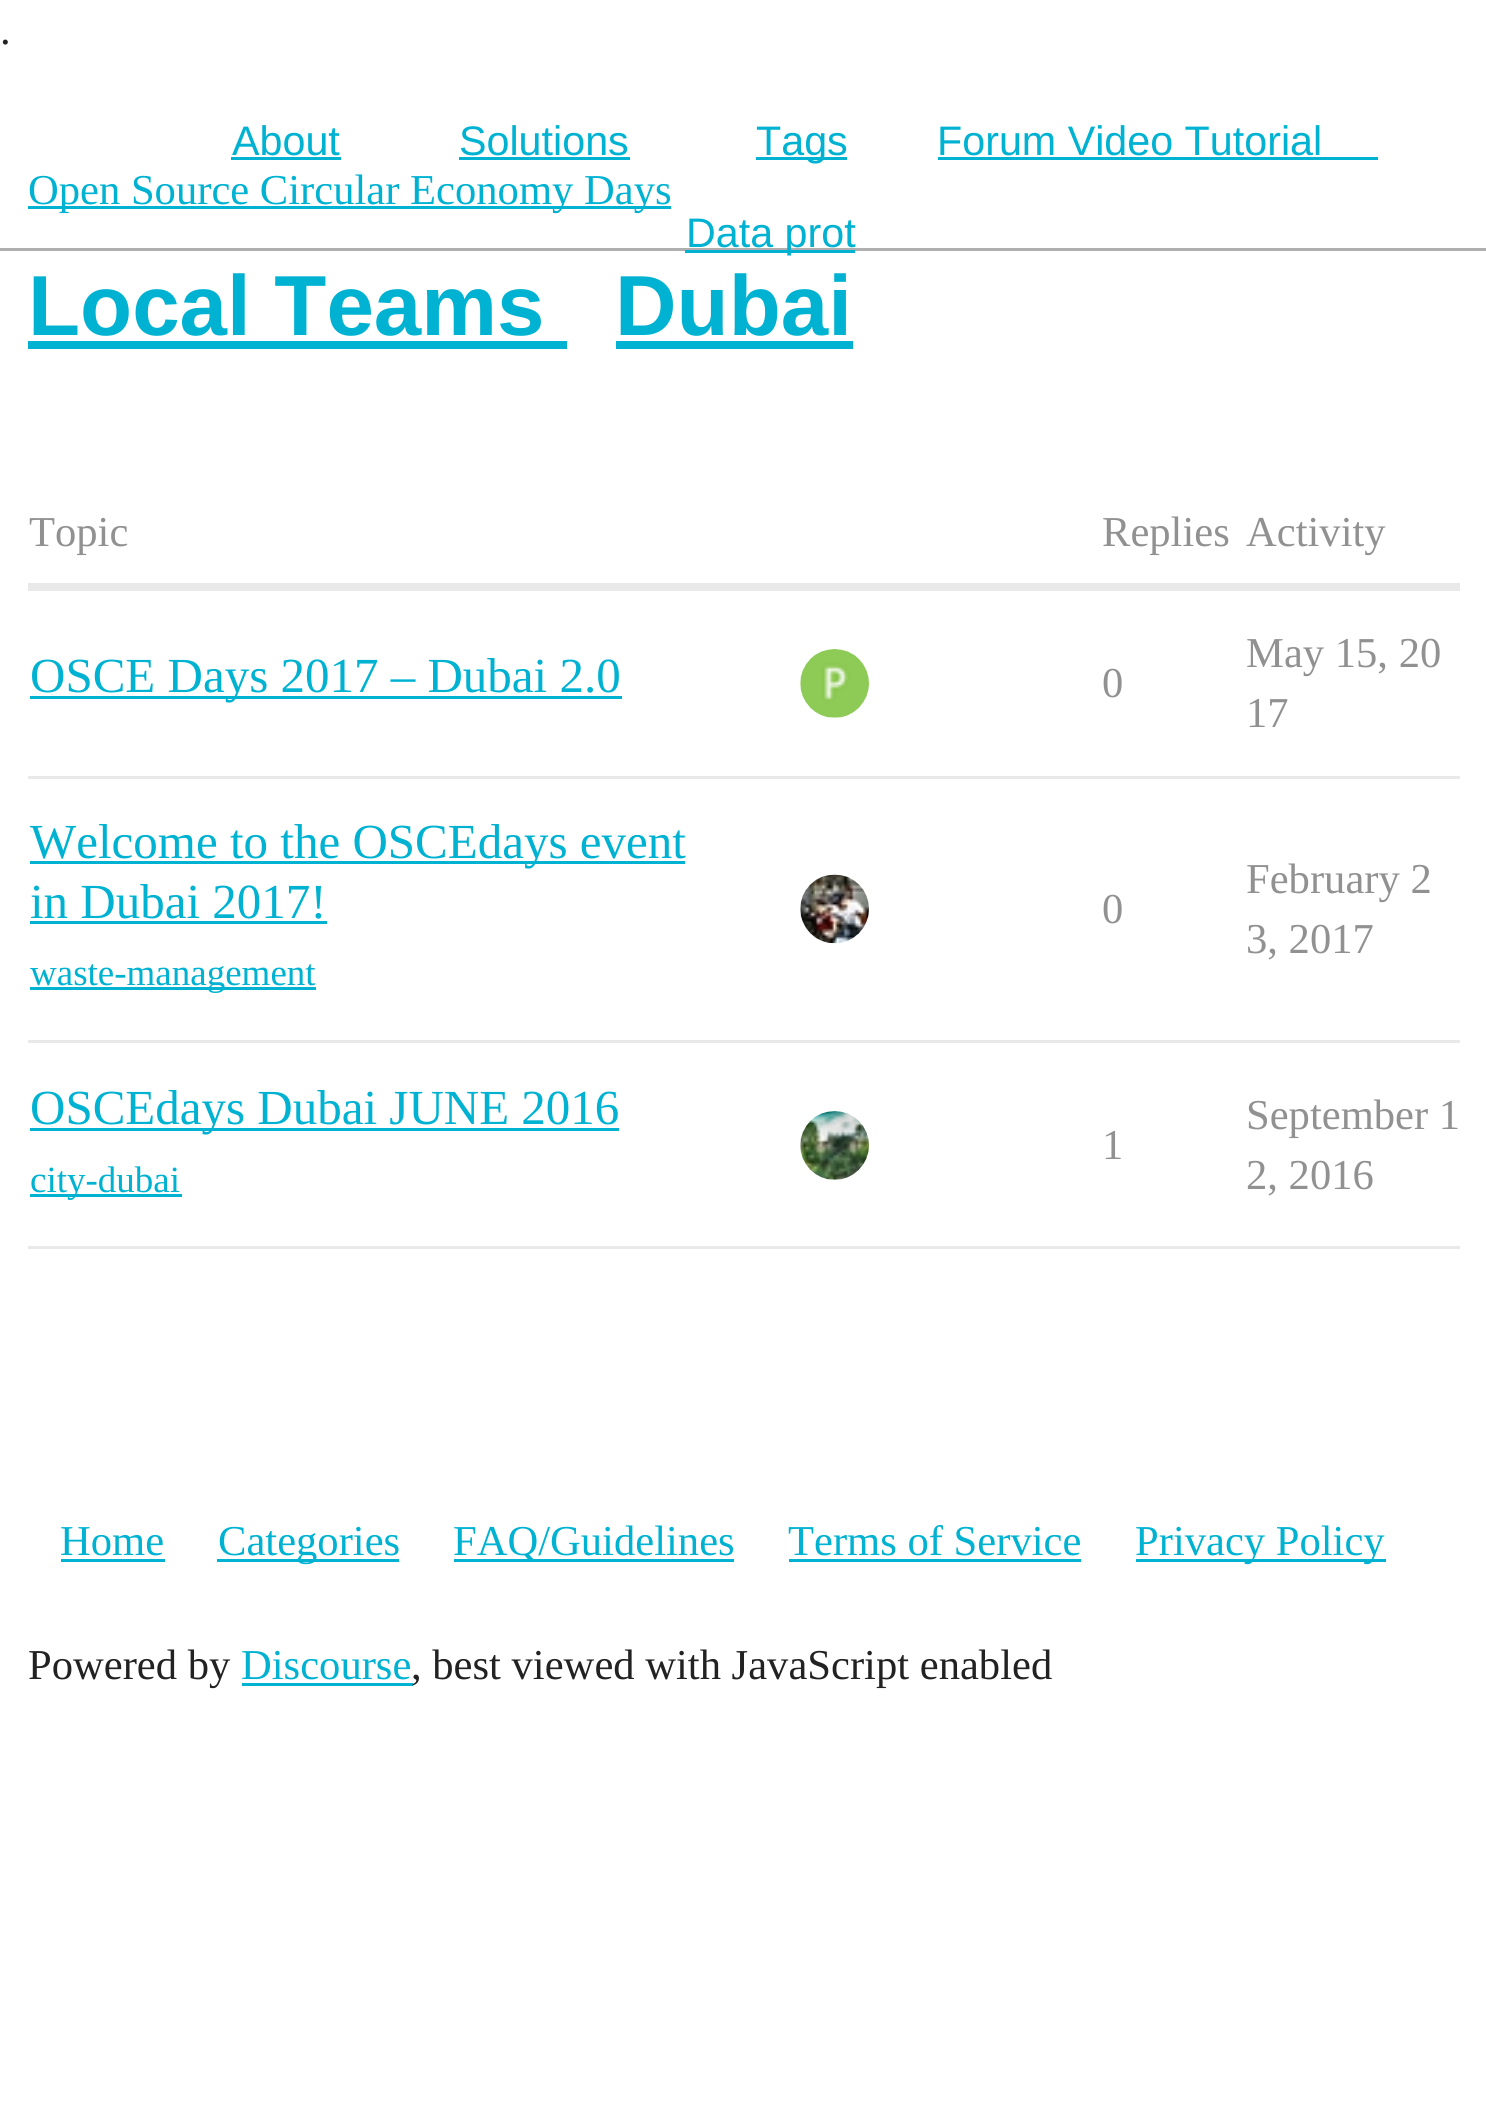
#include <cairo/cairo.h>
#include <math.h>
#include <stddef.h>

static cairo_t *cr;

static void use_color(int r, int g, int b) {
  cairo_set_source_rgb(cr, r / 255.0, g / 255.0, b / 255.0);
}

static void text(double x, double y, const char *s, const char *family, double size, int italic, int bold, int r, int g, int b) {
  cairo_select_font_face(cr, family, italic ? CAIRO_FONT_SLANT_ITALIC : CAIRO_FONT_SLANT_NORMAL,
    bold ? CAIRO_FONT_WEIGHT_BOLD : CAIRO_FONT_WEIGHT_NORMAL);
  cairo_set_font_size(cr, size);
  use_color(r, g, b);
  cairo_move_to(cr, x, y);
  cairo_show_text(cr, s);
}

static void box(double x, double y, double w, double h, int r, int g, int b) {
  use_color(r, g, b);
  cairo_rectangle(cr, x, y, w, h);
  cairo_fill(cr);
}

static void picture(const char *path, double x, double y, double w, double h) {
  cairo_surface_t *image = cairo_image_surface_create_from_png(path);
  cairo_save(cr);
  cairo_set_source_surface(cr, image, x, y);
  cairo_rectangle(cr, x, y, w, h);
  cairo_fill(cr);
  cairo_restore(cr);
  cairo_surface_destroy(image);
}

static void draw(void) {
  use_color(255, 255, 255);
  cairo_paint(cr);
  box(231, 157, 110, 3, 0, 178, 210);
  box(459, 157, 171, 3, 0, 178, 210);
  box(756, 157, 91, 3, 0, 178, 210);
  box(938, 157, 440, 3, 0, 178, 210);
  box(0, 248, 1486, 3, 175, 175, 175);
  box(685, 250, 170, 3, 0, 178, 210);
  box(28, 206, 643, 3, 0, 178, 210);
  box(28, 341, 539, 8, 0, 178, 210);
  box(616, 341, 237, 8, 0, 178, 210);
  box(28, 583, 1432, 8, 233, 233, 233);
  box(28, 776, 1432, 3, 233, 233, 233);
  box(30, 696, 592, 3, 0, 178, 210);
  picture("img_01.png", 800, 649, 69, 69);
  box(28, 1040, 1432, 3, 233, 233, 233);
  box(30, 861, 655, 3, 0, 178, 210);
  box(30, 921, 297, 3, 0, 178, 210);
  box(30, 987, 286, 3, 0, 178, 210);
  picture("img_02.png", 800, 874, 69, 70);
  box(28, 1246, 1432, 3, 233, 233, 233);
  box(30, 1128, 589, 3, 0, 178, 210);
  box(30, 1194, 152, 3, 0, 178, 210);
  picture("img_03.png", 800, 1111, 69, 69);
  box(61, 1559, 104, 3, 0, 178, 210);
  box(217, 1559, 182, 3, 0, 178, 210);
  box(454, 1559, 280, 3, 0, 178, 210);
  box(789, 1559, 292, 3, 0, 178, 210);
  box(1136, 1559, 250, 3, 0, 178, 210);
  box(242, 1683, 171, 3, 0, 178, 210);
  text(0, 44, ".", "Liberation Serif", 42.6, 0, 0, 34, 34, 34);
  text(232, 155, "About", "Liberation Sans", 41.25, 0, 0, 0, 178, 210);
  text(459, 155, "Solutions", "Liberation Sans", 41.25, 0, 0, 0, 178, 210);
  text(756, 155, "Tags", "Liberation Sans", 41.25, 0, 0, 0, 178, 210);
  text(937, 155, "Forum Video Tutorial", "Liberation Sans", 41.25, 0, 0, 0, 178, 210);
  text(686, 247, "Data prot", "Liberation Sans", 41.25, 0, 0, 0, 178, 210);
  text(28, 204, "Open Source Circular Economy Days", "Liberation Serif", 42.6, 0, 0, 0, 178, 210);
  text(28, 335, "Local Teams", "Liberation Sans", 85.25, 0, 1, 0, 178, 210);
  text(615, 335, "Dubai", "Liberation Sans", 85.25, 0, 1, 0, 178, 210);
  text(29, 546, "Topic", "Liberation Serif", 42.6, 0, 0, 145, 145, 145);
  text(1102, 546, "Replies", "Liberation Serif", 42.6, 0, 0, 145, 145, 145);
  text(1246, 546, "Activity", "Liberation Serif", 42.6, 0, 0, 145, 145, 145);
  text(30, 692, "OSCE Days 2017 – Dubai 2.0", "Liberation Serif", 49, 0, 0, 0, 178, 210);
  text(1102, 697, "0", "Liberation Serif", 42.6, 0, 0, 145, 145, 145);
  text(1246, 667, "May 15, 20", "Liberation Serif", 42.6, 0, 0, 145, 145, 145);
  text(1246, 727, "17", "Liberation Serif", 42.6, 0, 0, 145, 145, 145);
  text(30, 858, "Welcome to the OSCEdays event", "Liberation Serif", 49, 0, 0, 0, 178, 210);
  text(30, 918, "in Dubai 2017!", "Liberation Serif", 49, 0, 0, 0, 178, 210);
  text(30, 985, "waste-management", "Liberation Serif", 37, 0, 0, 0, 178, 210);
  text(1102, 923, "0", "Liberation Serif", 42.6, 0, 0, 145, 145, 145);
  text(1246, 893, "February 2", "Liberation Serif", 42.6, 0, 0, 145, 145, 145);
  text(1246, 953, "3, 2017", "Liberation Serif", 42.6, 0, 0, 145, 145, 145);
  text(30, 1124, "OSCEdays Dubai JUNE 2016", "Liberation Serif", 49, 0, 0, 0, 178, 210);
  text(30, 1192, "city-dubai", "Liberation Serif", 37, 0, 0, 0, 178, 210);
  text(1102, 1159, "1", "Liberation Serif", 42.6, 0, 0, 145, 145, 145);
  text(1246, 1129, "September 1", "Liberation Serif", 42.6, 0, 0, 145, 145, 145);
  text(1246, 1189, "2, 2016", "Liberation Serif", 42.6, 0, 0, 145, 145, 145);
  text(60, 1555, "Home", "Liberation Serif", 42.6, 0, 0, 0, 178, 210);
  text(218, 1555, "Categories", "Liberation Serif", 42.6, 0, 0, 0, 178, 210);
  text(453, 1555, "FAQ/Guidelines", "Liberation Serif", 42.6, 0, 0, 0, 178, 210);
  text(788, 1555, "Terms of Service", "Liberation Serif", 42.6, 0, 0, 0, 178, 210);
  text(1135, 1555, "Privacy Policy", "Liberation Serif", 42.6, 0, 0, 0, 178, 210);
  text(28, 1679, "Powered by", "Liberation Serif", 42.6, 0, 0, 34, 34, 34);
  text(241, 1679, "Discourse", "Liberation Serif", 42.6, 0, 0, 0, 178, 210);
  text(411, 1679, ", best viewed with JavaScript enabled", "Liberation Serif", 42.6, 0, 0, 34, 34, 34);
}

int main(void) {
  cairo_surface_t *surface = cairo_image_surface_create(CAIRO_FORMAT_RGB24, 1486, 2112);
  cr = cairo_create(surface);
  cairo_font_options_t *options = cairo_font_options_create();
  cairo_font_options_set_hint_metrics(options, CAIRO_HINT_METRICS_OFF);
  cairo_font_options_set_hint_style(options, CAIRO_HINT_STYLE_NONE);
  cairo_set_font_options(cr, options);
  cairo_set_miter_limit(cr, 4);
  draw();
  cairo_surface_write_to_png(surface, "out.png");
  cairo_font_options_destroy(options);
  cairo_destroy(cr);
  cairo_surface_destroy(surface);
  return 0;
}
